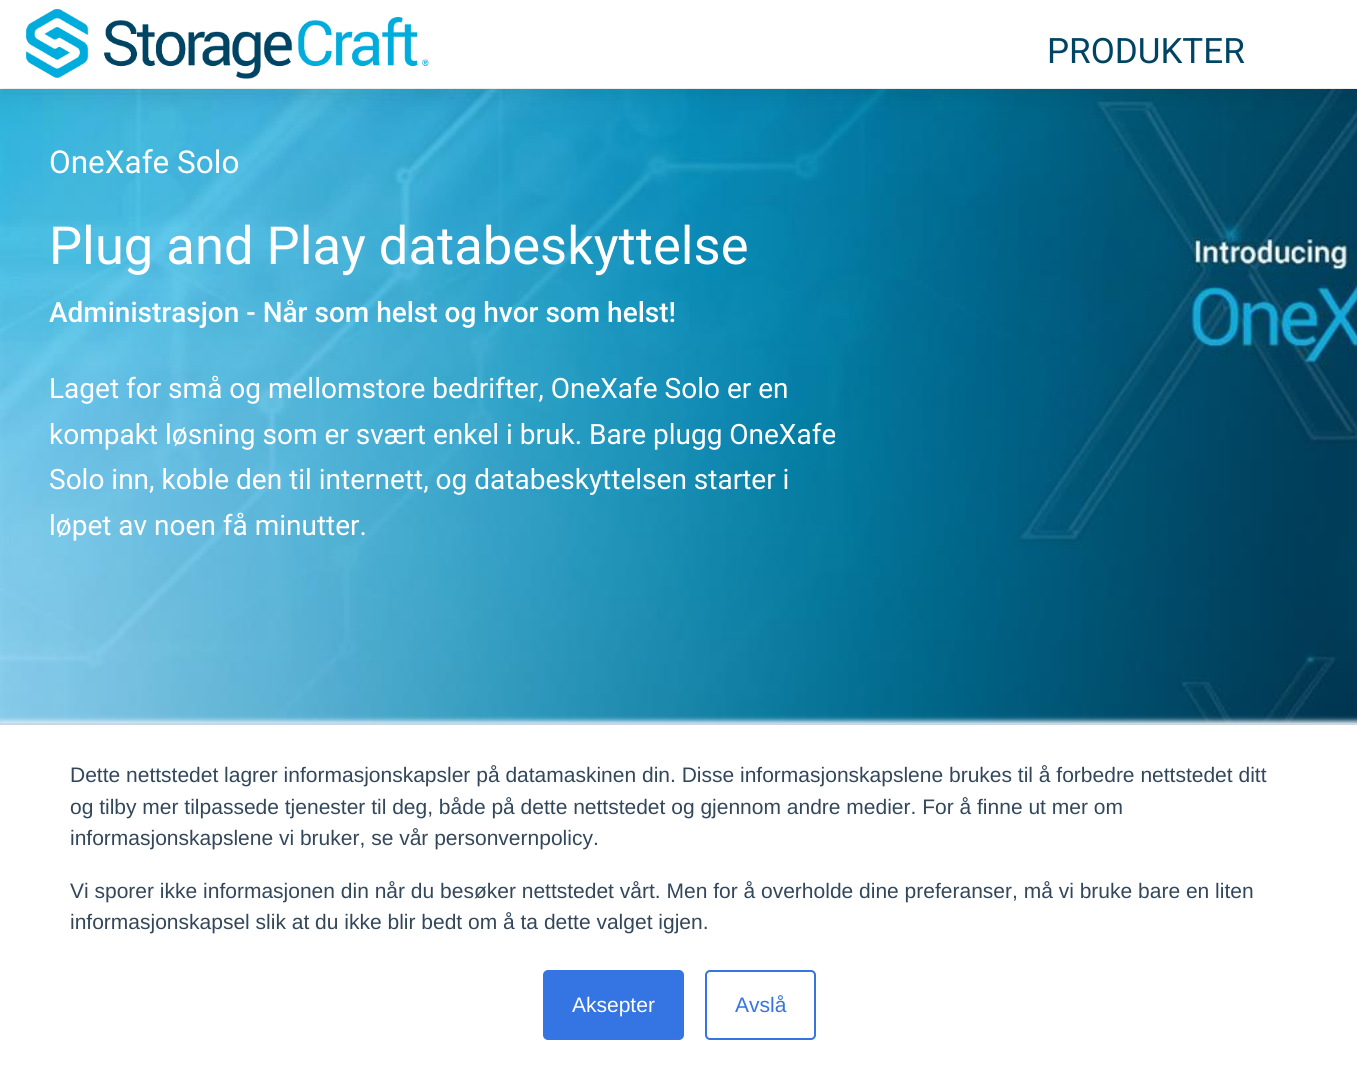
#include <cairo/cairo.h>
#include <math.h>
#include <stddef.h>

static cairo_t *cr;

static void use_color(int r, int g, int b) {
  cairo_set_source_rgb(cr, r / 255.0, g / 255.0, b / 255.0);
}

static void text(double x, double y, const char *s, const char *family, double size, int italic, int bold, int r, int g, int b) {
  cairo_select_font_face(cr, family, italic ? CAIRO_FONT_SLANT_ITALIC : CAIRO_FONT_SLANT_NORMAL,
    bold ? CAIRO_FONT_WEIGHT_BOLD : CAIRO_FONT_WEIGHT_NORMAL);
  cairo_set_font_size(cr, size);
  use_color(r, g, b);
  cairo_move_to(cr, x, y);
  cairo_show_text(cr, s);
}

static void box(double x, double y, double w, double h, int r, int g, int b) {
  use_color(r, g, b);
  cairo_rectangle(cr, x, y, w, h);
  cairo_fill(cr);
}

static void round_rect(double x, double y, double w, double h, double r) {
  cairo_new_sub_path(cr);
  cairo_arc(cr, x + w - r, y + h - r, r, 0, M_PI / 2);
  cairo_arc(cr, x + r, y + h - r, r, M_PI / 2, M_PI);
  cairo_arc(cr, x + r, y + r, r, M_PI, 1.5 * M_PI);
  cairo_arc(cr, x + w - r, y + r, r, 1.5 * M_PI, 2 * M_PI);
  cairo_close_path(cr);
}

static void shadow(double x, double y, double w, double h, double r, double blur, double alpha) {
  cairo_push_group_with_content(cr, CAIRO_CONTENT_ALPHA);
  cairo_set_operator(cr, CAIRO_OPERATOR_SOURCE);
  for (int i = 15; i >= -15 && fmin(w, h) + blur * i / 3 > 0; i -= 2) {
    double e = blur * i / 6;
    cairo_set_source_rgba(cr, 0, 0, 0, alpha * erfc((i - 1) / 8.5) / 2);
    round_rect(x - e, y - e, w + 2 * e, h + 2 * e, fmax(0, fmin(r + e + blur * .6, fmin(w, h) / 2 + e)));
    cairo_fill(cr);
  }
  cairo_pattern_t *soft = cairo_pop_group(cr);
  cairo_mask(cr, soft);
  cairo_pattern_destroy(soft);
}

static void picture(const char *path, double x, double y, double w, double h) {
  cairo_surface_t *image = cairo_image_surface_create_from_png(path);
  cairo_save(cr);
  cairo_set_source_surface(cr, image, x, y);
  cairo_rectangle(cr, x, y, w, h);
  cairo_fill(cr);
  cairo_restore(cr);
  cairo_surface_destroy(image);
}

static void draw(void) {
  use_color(255, 255, 255);
  cairo_paint(cr);
  picture("img_02.png", 0, 89, 1357, 634);
  use_color(0, 0, 0);
  shadow(0, 11, 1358, 87, 0, 17.5, 0.05);
  shadow(0, 9, 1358, 87, 0, 9, 0.05);
  box(0, 0, 1357, 88, 255, 255, 255);
  picture("img_01.png", 26, 9, 403, 70);
  use_color(234, 240, 246);
  shadow(0, 721, 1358, 362, 0, 2.5, 1);
  box(0, 725, 1357, 359, 255, 255, 255);
  box(0, 723, 1357, 2, 203, 214, 226);
  use_color(53, 116, 227);
  round_rect(544, 971, 139, 68, 4);
  cairo_fill_preserve(cr);
  cairo_stroke(cr);
  round_rect(706, 971, 109, 68, 4);
  cairo_stroke(cr);
  text(1047, 63, "PRODUKTER", "Roboto", 35, 0, 0, 0, 68, 99);
  text(49, 173, "OneXafe Solo", "Roboto", 31.5, 0, 0, 255, 255, 255);
  text(49, 264, "Plug and Play databeskyttelse", "Roboto", 52.5, 0, 0, 255, 255, 255);
  text(49, 322, "Administrasjon - Når som helst og hvor som helst!", "Roboto Medium", 28, 0, 0, 255, 255, 255);
  text(49, 398, "Laget for små og mellomstore bedrifter, OneXafe Solo er en", "Roboto", 28, 0, 0, 255, 255, 255);
  text(49, 444, "kompakt løsning som er svært enkel i bruk. Bare plugg OneXafe", "Roboto", 28, 0, 0, 255, 255, 255);
  text(49, 489, "Solo inn, koble den til internett, og databeskyttelsen starter i", "Roboto", 28, 0, 0, 255, 255, 255);
  text(49, 535, "løpet av noen få minutter.", "Roboto", 28, 0, 0, 255, 255, 255);
  text(70, 782, "Dette nettstedet lagrer informasjonskapsler på datamaskinen din. Disse informasjonskapslene brukes til å forbedre nettstedet ditt", "Liberation Sans", 21, 0, 0, 51, 71, 91);
  text(70, 814, "og tilby mer tilpassede tjenester til deg, både på dette nettstedet og gjennom andre medier. For å finne ut mer om", "Liberation Sans", 21, 0, 0, 51, 71, 91);
  text(70, 845, "informasjonskapslene vi bruker, se vår personvernpolicy.", "Liberation Sans", 21, 0, 0, 51, 71, 91);
  text(70, 898, "Vi sporer ikke informasjonen din når du besøker nettstedet vårt. Men for å overholde dine preferanser, må vi bruke bare en liten", "Liberation Sans", 21, 0, 0, 51, 71, 91);
  text(70, 929, "informasjonskapsel slik at du ikke blir bedt om å ta dette valget igjen.", "Liberation Sans", 21, 0, 0, 51, 71, 91);
  text(572, 1012, "Aksepter", "Liberation Sans", 21, 0, 0, 255, 255, 255);
  text(735, 1012, "Avslå", "Liberation Sans", 21, 0, 0, 53, 116, 227);
}

int main(void) {
  cairo_surface_t *surface = cairo_image_surface_create(CAIRO_FORMAT_RGB24, 1357, 1084);
  cr = cairo_create(surface);
  cairo_font_options_t *options = cairo_font_options_create();
  cairo_font_options_set_hint_metrics(options, CAIRO_HINT_METRICS_OFF);
  cairo_font_options_set_hint_style(options, CAIRO_HINT_STYLE_NONE);
  cairo_set_font_options(cr, options);
  cairo_set_miter_limit(cr, 4);
  draw();
  cairo_surface_write_to_png(surface, "out.png");
  cairo_font_options_destroy(options);
  cairo_destroy(cr);
  cairo_surface_destroy(surface);
  return 0;
}
